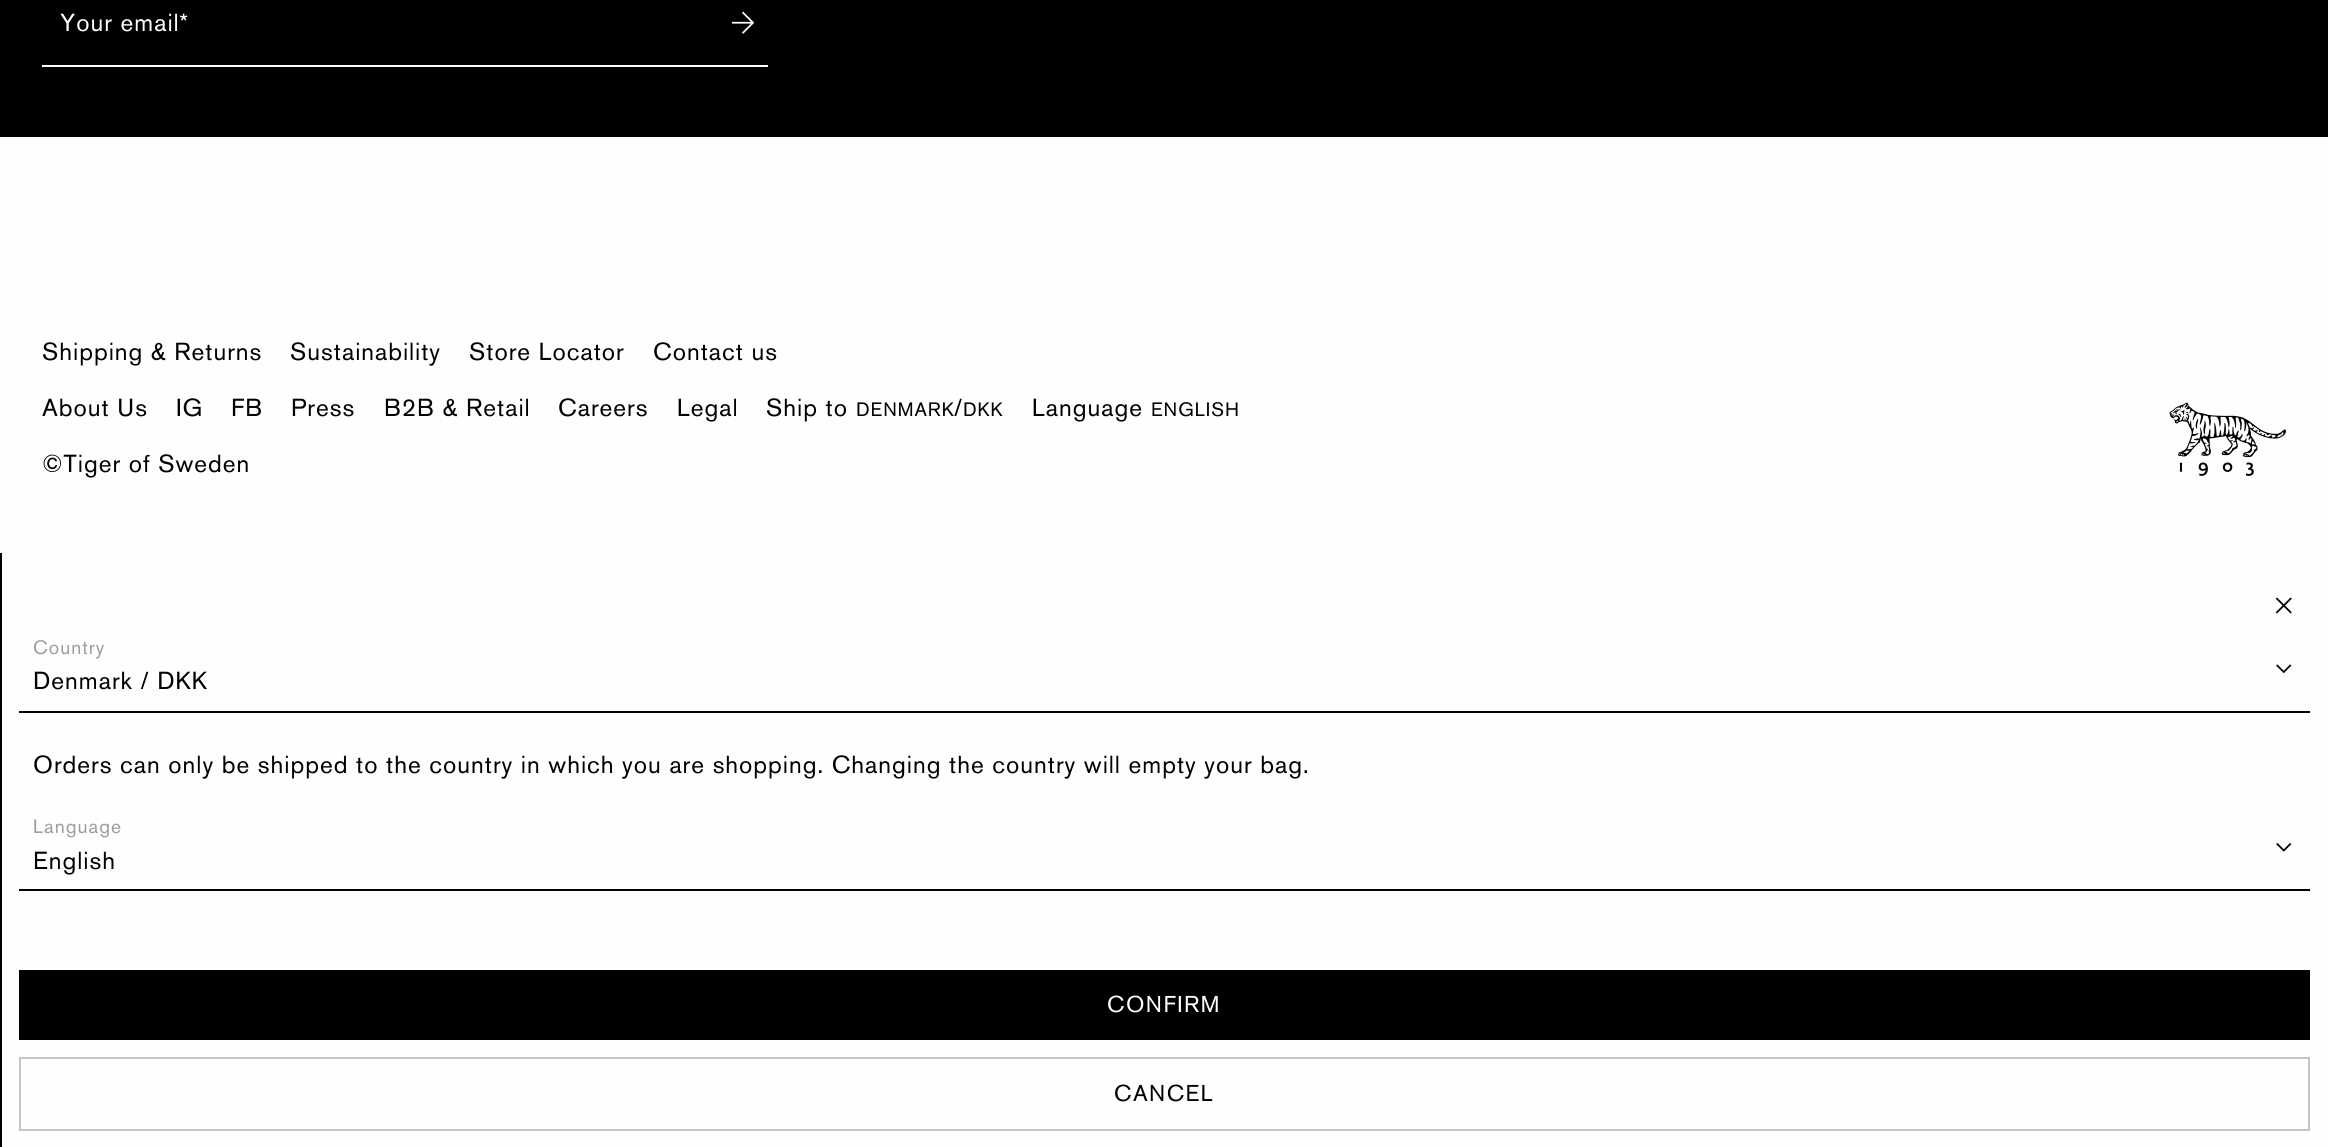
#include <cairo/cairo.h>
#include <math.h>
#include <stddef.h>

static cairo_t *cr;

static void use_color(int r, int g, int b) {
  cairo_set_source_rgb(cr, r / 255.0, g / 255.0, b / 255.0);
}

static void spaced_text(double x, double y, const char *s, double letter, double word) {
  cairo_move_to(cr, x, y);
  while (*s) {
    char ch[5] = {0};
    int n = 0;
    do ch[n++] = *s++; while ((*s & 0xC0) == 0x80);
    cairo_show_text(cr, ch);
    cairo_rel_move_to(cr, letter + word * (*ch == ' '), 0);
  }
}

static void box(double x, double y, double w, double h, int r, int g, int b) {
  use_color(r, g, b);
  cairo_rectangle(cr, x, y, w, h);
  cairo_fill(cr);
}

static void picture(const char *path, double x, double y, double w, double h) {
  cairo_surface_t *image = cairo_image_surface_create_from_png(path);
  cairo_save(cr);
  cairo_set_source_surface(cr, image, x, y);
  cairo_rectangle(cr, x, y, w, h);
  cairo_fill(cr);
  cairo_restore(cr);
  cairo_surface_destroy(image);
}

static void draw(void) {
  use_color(255, 254, 252);
  cairo_paint(cr);
  box(0, 0, 2328, 137, 0, 0, 0);
  picture("img_01.png", 732, 11, 22, 23);
  box(42, 65, 726, 2, 255, 254, 252);
  picture("img_02.png", 2169, 402, 117, 74);
  box(0, 553, 2, 594, 0, 0, 0);
  picture("img_03.png", 2275, 597, 17, 17);
  picture("img_04.png", 2276, 664, 16, 10);
  box(19, 711, 2291, 2, 0, 0, 0);
  picture("img_05.png", 2276, 843, 16, 9);
  box(19, 889, 2291, 2, 0, 0, 0);
  box(19, 970, 2291, 70, 0, 0, 0);
  cairo_rectangle(cr, 20, 1058, 2289, 72);
  use_color(196, 196, 194);
  cairo_stroke(cr);
  cairo_select_font_face(cr, "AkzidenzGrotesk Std", CAIRO_FONT_SLANT_NORMAL, CAIRO_FONT_WEIGHT_NORMAL);
  cairo_set_font_size(cr, 24.5);
  use_color(255, 254, 252);
  spaced_text(60, 31, "Your email*", 0.98, 0);
  use_color(0, 0, 0);
  spaced_text(42, 360, "Shipping & Returns", 0.98, 0);
  spaced_text(290, 360, "Sustainability", 0.98, 0);
  spaced_text(469, 360, "Store Locator", 0.98, 0);
  spaced_text(653, 360, "Contact us", 0.98, 0);
  spaced_text(42, 416, "About Us", 0.98, 0);
  spaced_text(176, 416, "IG", 0.98, 0);
  spaced_text(231, 416, "FB", 0.98, 0);
  spaced_text(291, 416, "Press", 0.98, 0);
  spaced_text(384, 416, "B2B & Retail", 0.98, 0);
  spaced_text(558, 416, "Careers", 0.98, 0);
  spaced_text(677, 416, "Legal", 0.98, 0);
  spaced_text(766, 416, "Ship to", 0.98, 0);
  cairo_set_font_size(cr, 19.25);
  spaced_text(856, 416, "DENMARK", 0.98, 0);
  cairo_set_font_size(cr, 24.5);
  spaced_text(954, 416, "/", 0.98, 0);
  cairo_set_font_size(cr, 19.25);
  spaced_text(963, 416, "DKK", 0.98, 0);
  cairo_set_font_size(cr, 24.5);
  spaced_text(1032, 416, "Language", 0.98, 0);
  cairo_set_font_size(cr, 19.25);
  spaced_text(1151, 416, "ENGLISH", 0.98, 0);
  cairo_set_font_size(cr, 24.5);
  spaced_text(42, 472, "©Tiger of Sweden", 0.98, 0);
  cairo_set_font_size(cr, 19.25);
  use_color(158, 157, 156);
  spaced_text(33, 654, "Country", 1, 0);
  cairo_set_font_size(cr, 24.5);
  use_color(0, 0, 0);
  spaced_text(33, 689, "Denmark / DKK", 0.98, 0);
  spaced_text(33, 773, "Orders can only be shipped to the country in which you are shopping. Changing the country will empty your bag.", 0.98, 0);
  cairo_set_font_size(cr, 19.25);
  use_color(158, 157, 156);
  spaced_text(33, 833, "Language", 1, 0);
  cairo_set_font_size(cr, 24.5);
  use_color(0, 0, 0);
  spaced_text(33, 869, "English", 0.98, 0);
  cairo_set_font_size(cr, 22.75);
  use_color(255, 254, 252);
  spaced_text(1107, 1012, "CONFIRM", 1.5, 0);
  use_color(0, 0, 0);
  spaced_text(1114, 1101, "CANCEL", 1.5, 0);
}

int main(void) {
  cairo_surface_t *surface = cairo_image_surface_create(CAIRO_FORMAT_RGB24, 2328, 1147);
  cr = cairo_create(surface);
  cairo_font_options_t *options = cairo_font_options_create();
  cairo_font_options_set_hint_metrics(options, CAIRO_HINT_METRICS_OFF);
  cairo_font_options_set_hint_style(options, CAIRO_HINT_STYLE_NONE);
  cairo_set_font_options(cr, options);
  cairo_set_miter_limit(cr, 4);
  draw();
  cairo_surface_write_to_png(surface, "out.png");
  cairo_font_options_destroy(options);
  cairo_destroy(cr);
  cairo_surface_destroy(surface);
  return 0;
}
